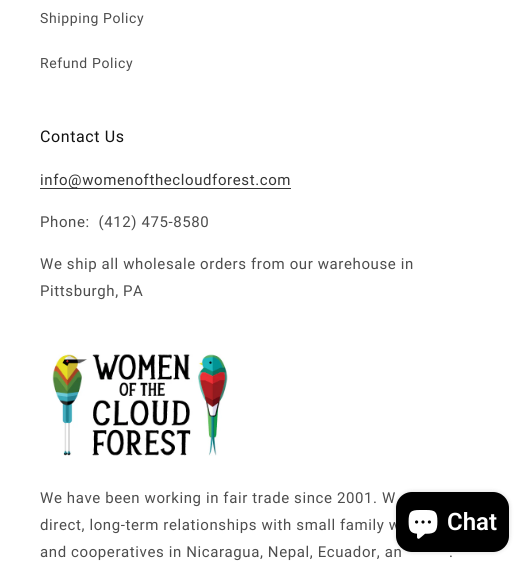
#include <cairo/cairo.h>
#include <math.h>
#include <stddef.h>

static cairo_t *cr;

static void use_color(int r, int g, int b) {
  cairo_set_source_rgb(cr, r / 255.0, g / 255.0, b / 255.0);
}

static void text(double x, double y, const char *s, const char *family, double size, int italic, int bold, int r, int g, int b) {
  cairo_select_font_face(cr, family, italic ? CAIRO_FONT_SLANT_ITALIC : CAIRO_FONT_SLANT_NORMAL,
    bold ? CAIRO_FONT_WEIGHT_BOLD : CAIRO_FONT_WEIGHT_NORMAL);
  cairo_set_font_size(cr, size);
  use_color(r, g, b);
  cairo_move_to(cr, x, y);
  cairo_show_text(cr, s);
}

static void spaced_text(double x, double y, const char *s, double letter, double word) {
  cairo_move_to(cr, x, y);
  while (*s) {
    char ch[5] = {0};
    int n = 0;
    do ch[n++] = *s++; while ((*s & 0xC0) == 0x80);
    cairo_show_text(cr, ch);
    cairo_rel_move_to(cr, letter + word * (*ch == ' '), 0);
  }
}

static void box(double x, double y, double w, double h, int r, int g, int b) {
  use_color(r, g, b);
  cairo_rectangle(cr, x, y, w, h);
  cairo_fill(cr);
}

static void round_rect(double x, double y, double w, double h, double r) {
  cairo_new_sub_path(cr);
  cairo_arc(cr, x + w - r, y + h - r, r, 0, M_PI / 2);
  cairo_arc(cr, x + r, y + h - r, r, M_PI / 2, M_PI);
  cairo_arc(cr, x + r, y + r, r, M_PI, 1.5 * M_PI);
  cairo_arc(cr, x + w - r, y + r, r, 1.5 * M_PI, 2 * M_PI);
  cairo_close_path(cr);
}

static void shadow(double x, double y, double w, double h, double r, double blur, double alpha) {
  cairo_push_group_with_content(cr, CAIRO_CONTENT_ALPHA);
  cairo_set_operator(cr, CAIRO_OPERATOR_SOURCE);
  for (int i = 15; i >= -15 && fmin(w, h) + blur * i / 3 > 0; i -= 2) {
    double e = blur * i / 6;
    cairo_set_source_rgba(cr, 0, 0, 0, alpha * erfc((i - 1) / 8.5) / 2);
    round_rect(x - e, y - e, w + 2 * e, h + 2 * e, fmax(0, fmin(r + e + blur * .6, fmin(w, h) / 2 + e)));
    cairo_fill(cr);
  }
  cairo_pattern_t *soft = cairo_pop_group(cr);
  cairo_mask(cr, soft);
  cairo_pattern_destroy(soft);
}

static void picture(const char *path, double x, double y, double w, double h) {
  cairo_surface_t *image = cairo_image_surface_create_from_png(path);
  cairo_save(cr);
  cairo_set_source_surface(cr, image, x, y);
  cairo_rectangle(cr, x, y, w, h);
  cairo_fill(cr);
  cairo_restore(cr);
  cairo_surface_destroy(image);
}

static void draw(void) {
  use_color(255, 255, 255);
  cairo_paint(cr);
  box(40, 188, 251, 1, 54, 54, 54);
  picture("img_01.png", 52, 354, 176, 102);
  use_color(0, 0, 0);
  shadow(396, 492, 113, 60, 16, 2.5, 0.15);
  cairo_select_font_face(cr, "Roboto", CAIRO_FONT_SLANT_NORMAL, CAIRO_FONT_WEIGHT_NORMAL);
  cairo_set_font_size(cr, 14);
  use_color(77, 77, 77);
  spaced_text(40, 23, "Shipping Policy", 0.6, 0);
  spaced_text(40, 68, "Refund Policy", 0.6, 0);
  cairo_set_font_size(cr, 16);
  use_color(18, 18, 18);
  spaced_text(40, 142, "Contact Us", 0.6, 0);
  cairo_set_font_size(cr, 15);
  use_color(53, 53, 53);
  spaced_text(40, 185, "info@womenofthecloudforest.com", 0.6, 0);
  use_color(77, 77, 77);
  spaced_text(40, 227, "Phone:  (412) 475-8580", 0.6, 0);
  spaced_text(40, 269, "We ship all wholesale orders from our warehouse in", 0.6, 0);
  spaced_text(40, 296, "Pittsburgh, PA", 0.6, 0);
  spaced_text(40, 503, "We have been working in fair trade since 2001. W", 0.6, 0);
  spaced_text(40, 530, "direct, long-term relationships with small family w", 0.6, 0);
  spaced_text(40, 557, "and cooperatives in Nicaragua, Nepal, Ecuador, an", 0.6, 0);
  spaced_text(449, 557, ".", 0.6, 0);
  use_color(0, 0, 0);
  round_rect(396, 492, 113, 60, 16);
  cairo_fill(cr);
  picture("img_02.png", 408, 510, 30, 29);
  text(447, 530, "Chat", "Roboto SemiBold", 24, 0, 0, 255, 255, 255);
}

int main(void) {
  cairo_surface_t *surface = cairo_image_surface_create(CAIRO_FORMAT_RGB24, 531, 573);
  cr = cairo_create(surface);
  cairo_font_options_t *options = cairo_font_options_create();
  cairo_font_options_set_hint_metrics(options, CAIRO_HINT_METRICS_OFF);
  cairo_font_options_set_hint_style(options, CAIRO_HINT_STYLE_NONE);
  cairo_set_font_options(cr, options);
  cairo_set_miter_limit(cr, 4);
  draw();
  cairo_surface_write_to_png(surface, "out.png");
  cairo_font_options_destroy(options);
  cairo_destroy(cr);
  cairo_surface_destroy(surface);
  return 0;
}
